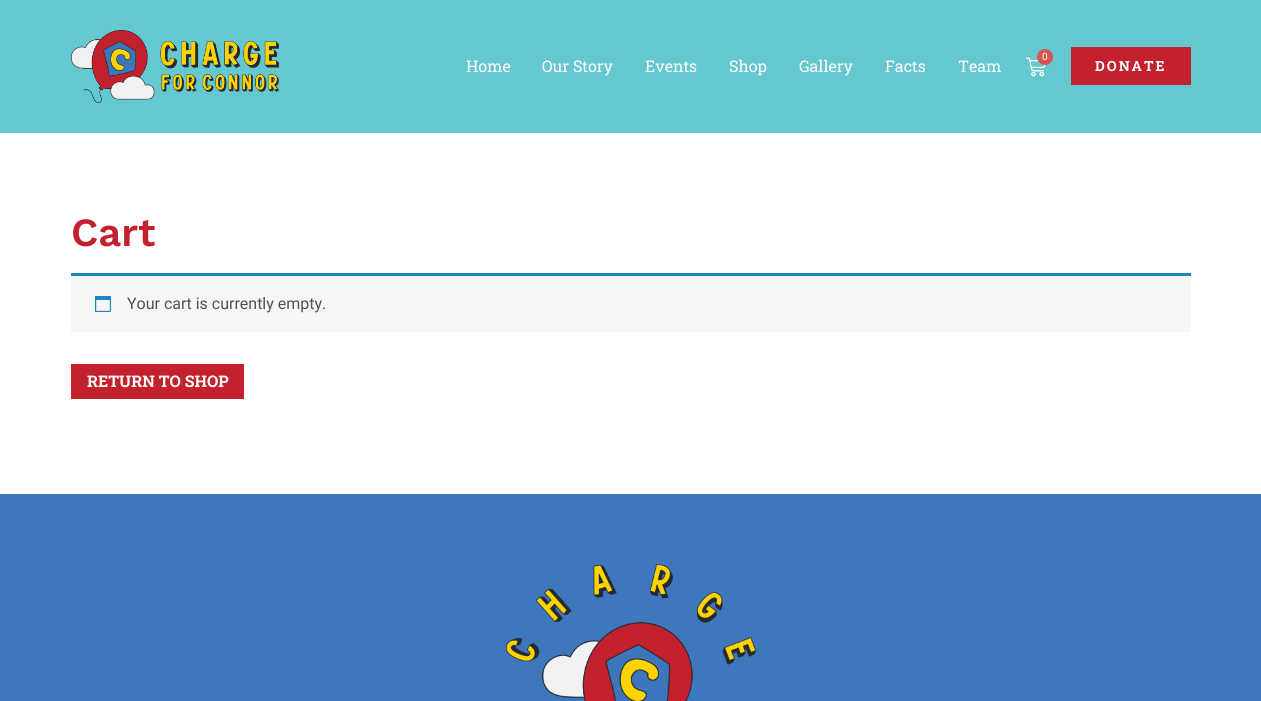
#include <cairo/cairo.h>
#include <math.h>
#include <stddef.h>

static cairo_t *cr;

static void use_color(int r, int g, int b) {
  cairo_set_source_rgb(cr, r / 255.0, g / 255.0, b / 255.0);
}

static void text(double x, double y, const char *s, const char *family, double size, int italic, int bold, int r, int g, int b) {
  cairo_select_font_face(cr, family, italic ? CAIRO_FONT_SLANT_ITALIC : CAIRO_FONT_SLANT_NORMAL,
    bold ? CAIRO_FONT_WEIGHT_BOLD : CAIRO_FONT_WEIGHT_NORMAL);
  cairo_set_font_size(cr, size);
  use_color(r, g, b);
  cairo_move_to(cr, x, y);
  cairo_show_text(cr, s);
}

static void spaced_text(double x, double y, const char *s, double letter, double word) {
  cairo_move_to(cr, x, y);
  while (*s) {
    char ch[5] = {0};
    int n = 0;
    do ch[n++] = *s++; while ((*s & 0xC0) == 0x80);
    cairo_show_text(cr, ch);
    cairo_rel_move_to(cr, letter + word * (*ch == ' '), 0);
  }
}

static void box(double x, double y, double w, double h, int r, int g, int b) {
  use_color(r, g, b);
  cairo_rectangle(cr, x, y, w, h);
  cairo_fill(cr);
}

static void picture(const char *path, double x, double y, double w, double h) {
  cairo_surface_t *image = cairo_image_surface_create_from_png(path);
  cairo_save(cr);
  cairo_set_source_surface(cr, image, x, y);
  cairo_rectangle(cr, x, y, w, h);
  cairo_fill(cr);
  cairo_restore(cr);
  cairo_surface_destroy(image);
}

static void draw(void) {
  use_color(255, 255, 255);
  cairo_paint(cr);
  box(0, 0, 1261, 133, 101, 200, 208);
  picture("img_01.png", 71, 30, 208, 73);
  picture("img_02.png", 1026, 57, 20, 20);
  use_color(217, 83, 79);
  cairo_arc(cr, 1045, 57, 8, 0, 2 * M_PI);
  cairo_fill(cr);
  box(1071, 47, 120, 38, 196, 33, 47);
  box(71, 276, 1120, 56, 246, 245, 248);
  box(71, 273, 1120, 3, 30, 133, 190);
  picture("img_03.png", 95, 296, 16, 16);
  box(71, 364, 173, 35, 196, 33, 47);
  box(0, 494, 1261, 207, 62, 119, 187);
  picture("img_04.png", 506, 564, 250, 137);
  text(1042, 60, "0", "Roboto Slab", 10, 0, 0, 255, 255, 255);
  text(466, 72, "Home", "Roboto Slab", 16, 0, 0, 255, 255, 255);
  text(542, 72, "Our Story", "Roboto Slab", 16, 0, 0, 255, 255, 255);
  text(645, 72, "Events", "Roboto Slab", 16, 0, 0, 255, 255, 255);
  text(729, 72, "Shop", "Roboto Slab", 16, 0, 0, 255, 255, 255);
  text(799, 72, "Gallery", "Roboto Slab", 16, 0, 0, 255, 255, 255);
  text(885, 72, "Facts", "Roboto Slab", 16, 0, 0, 255, 255, 255);
  text(958, 72, "Team", "Roboto Slab", 16, 0, 0, 255, 255, 255);
  cairo_select_font_face(cr, "Roboto Slab", CAIRO_FONT_SLANT_NORMAL, CAIRO_FONT_WEIGHT_BOLD);
  cairo_set_font_size(cr, 14);
  spaced_text(1095, 71, "DONATE", 2, 0);
  text(71, 246, "Cart", "Work Sans SemiBold", 40, 0, 0, 196, 33, 47);
  text(127, 309, "Your cart is currently empty.", "Roboto", 16, 0, 0, 81, 81, 81);
  text(87, 387, "RETURN TO SHOP", "Roboto Slab", 16, 0, 1, 255, 255, 255);
}

int main(void) {
  cairo_surface_t *surface = cairo_image_surface_create(CAIRO_FORMAT_RGB24, 1261, 701);
  cr = cairo_create(surface);
  cairo_font_options_t *options = cairo_font_options_create();
  cairo_font_options_set_hint_metrics(options, CAIRO_HINT_METRICS_OFF);
  cairo_font_options_set_hint_style(options, CAIRO_HINT_STYLE_NONE);
  cairo_set_font_options(cr, options);
  cairo_set_miter_limit(cr, 4);
  draw();
  cairo_surface_write_to_png(surface, "out.png");
  cairo_font_options_destroy(options);
  cairo_destroy(cr);
  cairo_surface_destroy(surface);
  return 0;
}
